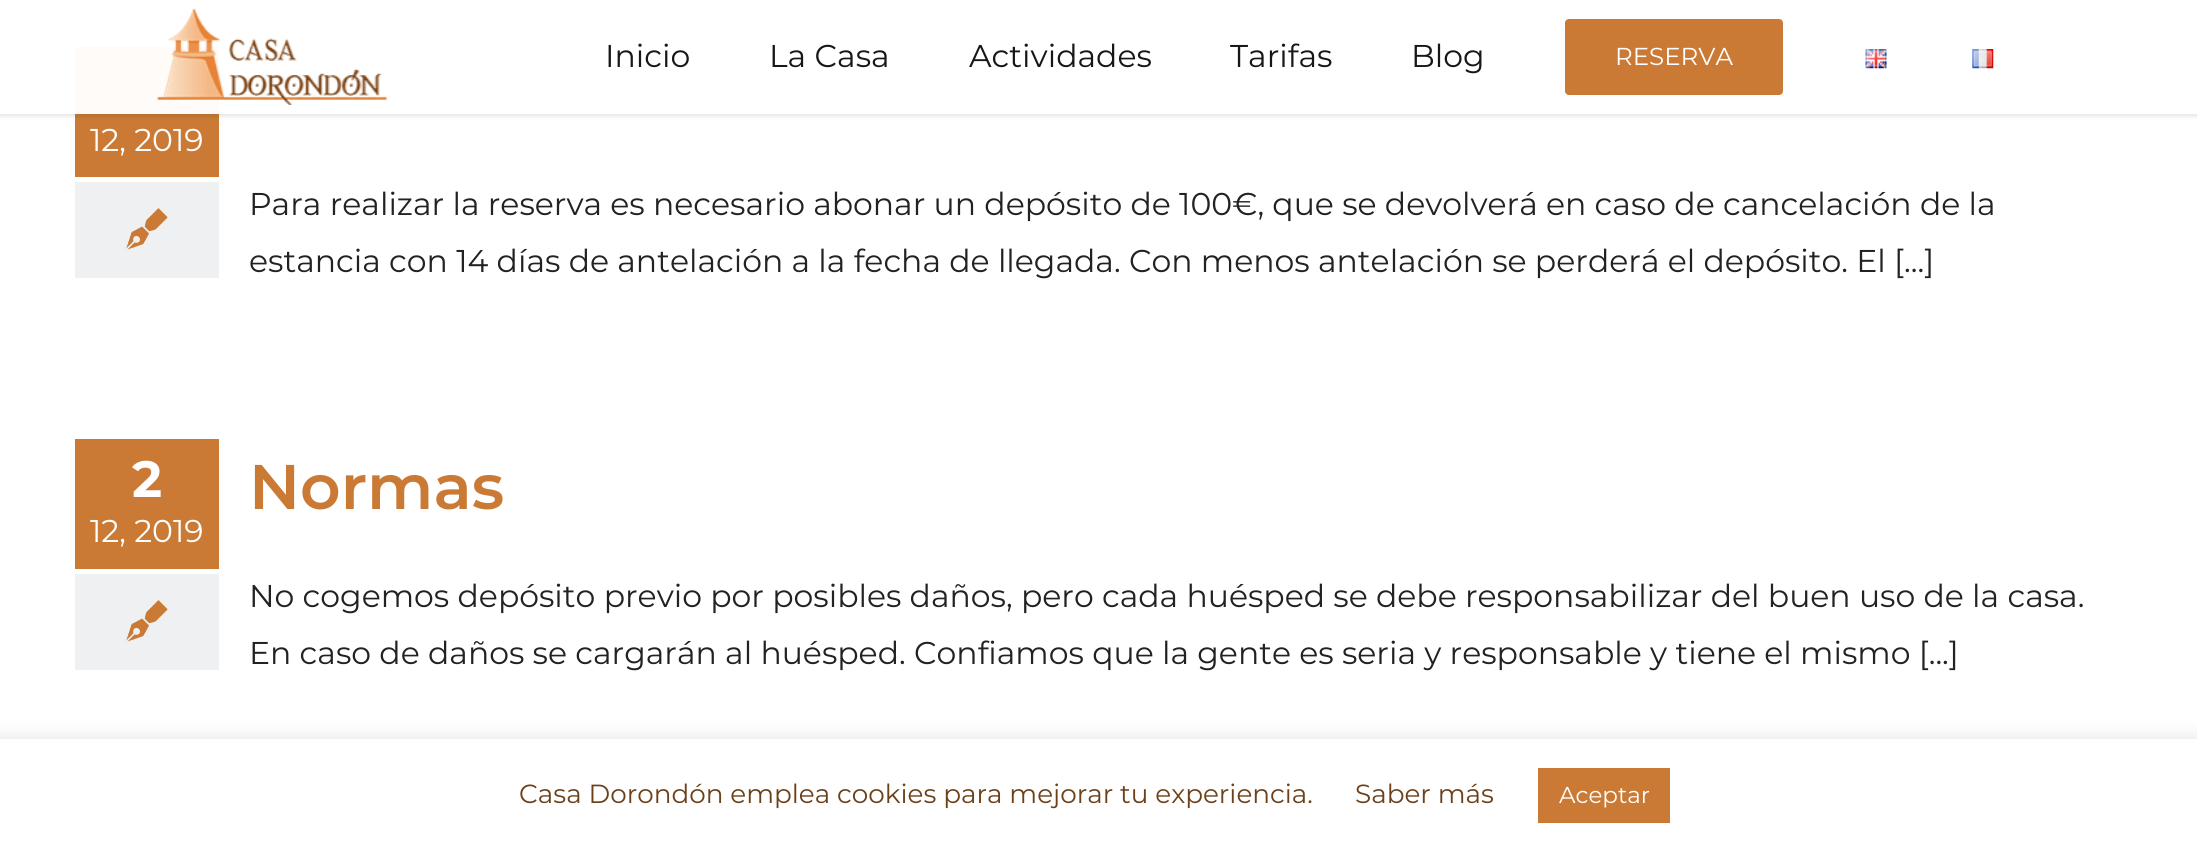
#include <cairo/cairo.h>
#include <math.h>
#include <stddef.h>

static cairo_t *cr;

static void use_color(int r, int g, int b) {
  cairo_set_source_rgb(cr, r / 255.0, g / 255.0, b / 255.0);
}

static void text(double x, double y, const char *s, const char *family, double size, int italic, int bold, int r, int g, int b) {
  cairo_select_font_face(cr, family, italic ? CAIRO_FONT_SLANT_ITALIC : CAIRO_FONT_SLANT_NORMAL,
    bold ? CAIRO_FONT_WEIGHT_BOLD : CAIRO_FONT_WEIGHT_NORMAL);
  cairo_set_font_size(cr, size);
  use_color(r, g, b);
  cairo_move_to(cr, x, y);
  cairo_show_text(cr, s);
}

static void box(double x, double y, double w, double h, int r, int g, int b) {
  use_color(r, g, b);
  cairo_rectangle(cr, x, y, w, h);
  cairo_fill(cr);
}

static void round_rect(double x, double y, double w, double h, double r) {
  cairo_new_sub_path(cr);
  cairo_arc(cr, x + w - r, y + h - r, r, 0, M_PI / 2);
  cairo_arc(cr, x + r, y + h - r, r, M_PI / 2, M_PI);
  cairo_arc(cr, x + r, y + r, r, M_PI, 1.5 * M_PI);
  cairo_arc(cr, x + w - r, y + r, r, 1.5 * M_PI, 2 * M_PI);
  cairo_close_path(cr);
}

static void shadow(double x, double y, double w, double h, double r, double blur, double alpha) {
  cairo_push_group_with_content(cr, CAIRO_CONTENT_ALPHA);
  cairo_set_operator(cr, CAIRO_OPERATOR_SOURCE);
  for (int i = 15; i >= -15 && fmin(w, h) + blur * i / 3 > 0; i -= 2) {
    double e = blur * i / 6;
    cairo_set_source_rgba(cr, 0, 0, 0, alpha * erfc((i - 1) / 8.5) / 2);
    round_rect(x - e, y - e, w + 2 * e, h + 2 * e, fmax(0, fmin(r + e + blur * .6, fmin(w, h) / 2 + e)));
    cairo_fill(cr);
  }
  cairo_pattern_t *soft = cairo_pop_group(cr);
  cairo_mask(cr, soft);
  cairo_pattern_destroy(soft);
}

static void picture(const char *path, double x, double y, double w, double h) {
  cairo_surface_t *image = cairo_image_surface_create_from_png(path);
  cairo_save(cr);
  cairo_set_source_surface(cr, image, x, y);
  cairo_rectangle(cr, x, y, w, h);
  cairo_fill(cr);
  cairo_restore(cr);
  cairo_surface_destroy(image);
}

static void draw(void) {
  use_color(255, 255, 255);
  cairo_paint(cr);
  box(75, 47, 144, 130, 202, 122, 52);
  cairo_save(cr);
  cairo_set_fill_rule(cr, CAIRO_FILL_RULE_EVEN_ODD);
  cairo_new_path(cr);
  cairo_move_to(cr, 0, 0);
  cairo_line_to(cr, 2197, 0);
  cairo_line_to(cr, 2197, 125);
  cairo_line_to(cr, 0, 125);
  cairo_close_path(cr);
  cairo_move_to(cr, 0, 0);
  cairo_line_to(cr, 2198, 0);
  cairo_line_to(cr, 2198, 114);
  cairo_line_to(cr, 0, 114);
  cairo_close_path(cr);
  cairo_clip(cr);
  use_color(0, 0, 0);
  shadow(0, 2, 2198, 114, 0, 2.5, 0.12);
  cairo_restore(cr);
  cairo_set_source_rgba(cr, 1, 1, 1, 0.97);
  cairo_rectangle(cr, 0, 47, 2197, 67);
  cairo_fill(cr);
  picture("img_01.png", 157, 8, 230, 97);
  use_color(202, 122, 52);
  round_rect(1565, 19, 218, 76, 4);
  cairo_fill(cr);
  picture("img_02.png", 1865, 49, 22, 20);
  picture("img_03.png", 1972, 49, 22, 20);
  box(75, 182, 144, 96, 238, 240, 242);
  picture("img_04.png", 126, 208, 42, 42);
  box(75, 439, 144, 130, 202, 122, 52);
  box(75, 574, 144, 96, 238, 240, 242);
  picture("img_04.png", 126, 600, 42, 42);
  use_color(172, 171, 171);
  shadow(0, 737, 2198, 114, 0, 9, 0.3);
  box(0, 739, 2197, 113, 255, 255, 255);
  box(1538, 768, 132, 55, 202, 122, 52);
  text(605, 67, "Inicio", "Montserrat", 31.5, 0, 0, 23, 23, 23);
  text(769, 67, "La Casa", "Montserrat", 31.5, 0, 0, 23, 23, 23);
  text(969, 67, "Actividades", "Montserrat", 31.5, 0, 0, 23, 23, 23);
  text(1230, 67, "Tarifas", "Montserrat", 31.5, 0, 0, 23, 23, 23);
  text(1411, 67, "Blog", "Montserrat", 31.5, 0, 0, 23, 23, 23);
  text(1615, 65, "RESERVA", "Montserrat", 24.5, 0, 0, 255, 255, 255);
  text(90, 151, "12, 2019", "Montserrat", 31.5, 0, 0, 255, 255, 255);
  text(249, 215, "Para realizar la reserva es necesario abonar un depósito de 100€, que se devolverá en caso de cancelación de la", "Montserrat", 31.5, 0, 0, 34, 34, 34);
  text(249, 272, "estancia con 14 días de antelación a la fecha de llegada. Con menos antelación se perderá el depósito. El [...]", "Montserrat", 31.5, 0, 0, 34, 34, 34);
  text(132, 497, "2", "Montserrat", 51, 0, 1, 255, 255, 255);
  text(90, 542, "12, 2019", "Montserrat", 31.5, 0, 0, 255, 255, 255);
  text(249, 509, "Normas", "Montserrat SemiBold", 63, 0, 0, 202, 122, 52);
  text(249, 607, "No cogemos depósito previo por posibles daños, pero cada huésped se debe responsabilizar del buen uso de la casa.", "Montserrat", 31.5, 0, 0, 34, 34, 34);
  text(249, 664, "En caso de daños se cargarán al huésped. Confiamos que la gente es seria y responsable y tiene el mismo [...]", "Montserrat", 31.5, 0, 0, 34, 34, 34);
  text(519, 803, "Casa Dorondón emplea cookies para mejorar tu experiencia.", "Montserrat", 26.25, 0, 0, 108, 64, 25);
  text(1355, 803, "Saber más", "Montserrat", 26.25, 0, 0, 108, 64, 25);
  text(1559, 803, "Aceptar", "Montserrat", 23, 0, 0, 255, 255, 255);
}

int main(void) {
  cairo_surface_t *surface = cairo_image_surface_create(CAIRO_FORMAT_RGB24, 2197, 852);
  cr = cairo_create(surface);
  cairo_font_options_t *options = cairo_font_options_create();
  cairo_font_options_set_hint_metrics(options, CAIRO_HINT_METRICS_OFF);
  cairo_font_options_set_hint_style(options, CAIRO_HINT_STYLE_NONE);
  cairo_set_font_options(cr, options);
  cairo_set_miter_limit(cr, 4);
  draw();
  cairo_surface_write_to_png(surface, "out.png");
  cairo_font_options_destroy(options);
  cairo_destroy(cr);
  cairo_surface_destroy(surface);
  return 0;
}
